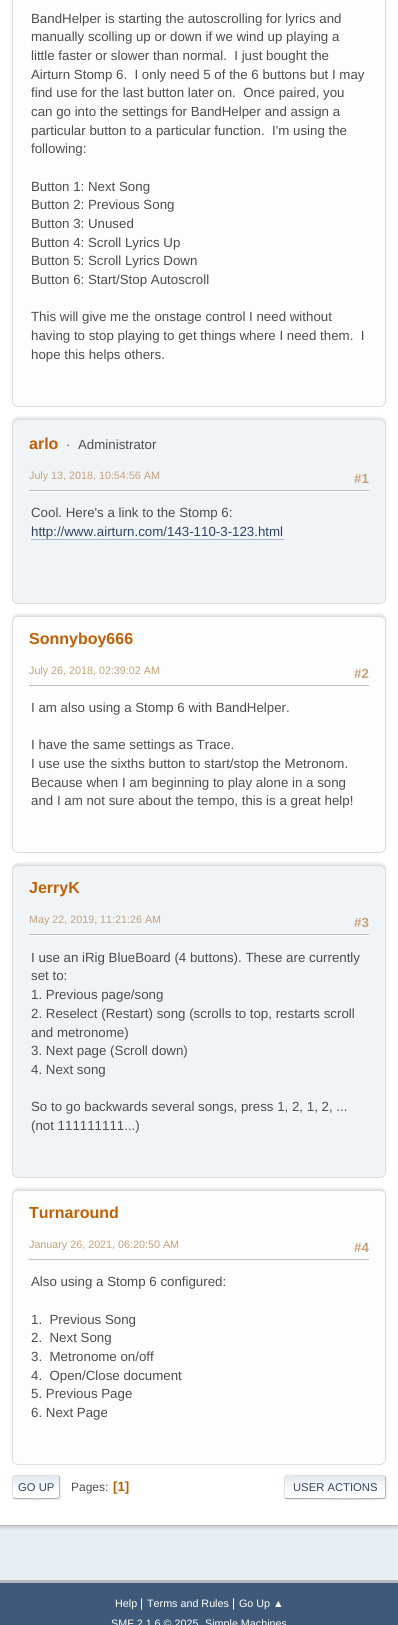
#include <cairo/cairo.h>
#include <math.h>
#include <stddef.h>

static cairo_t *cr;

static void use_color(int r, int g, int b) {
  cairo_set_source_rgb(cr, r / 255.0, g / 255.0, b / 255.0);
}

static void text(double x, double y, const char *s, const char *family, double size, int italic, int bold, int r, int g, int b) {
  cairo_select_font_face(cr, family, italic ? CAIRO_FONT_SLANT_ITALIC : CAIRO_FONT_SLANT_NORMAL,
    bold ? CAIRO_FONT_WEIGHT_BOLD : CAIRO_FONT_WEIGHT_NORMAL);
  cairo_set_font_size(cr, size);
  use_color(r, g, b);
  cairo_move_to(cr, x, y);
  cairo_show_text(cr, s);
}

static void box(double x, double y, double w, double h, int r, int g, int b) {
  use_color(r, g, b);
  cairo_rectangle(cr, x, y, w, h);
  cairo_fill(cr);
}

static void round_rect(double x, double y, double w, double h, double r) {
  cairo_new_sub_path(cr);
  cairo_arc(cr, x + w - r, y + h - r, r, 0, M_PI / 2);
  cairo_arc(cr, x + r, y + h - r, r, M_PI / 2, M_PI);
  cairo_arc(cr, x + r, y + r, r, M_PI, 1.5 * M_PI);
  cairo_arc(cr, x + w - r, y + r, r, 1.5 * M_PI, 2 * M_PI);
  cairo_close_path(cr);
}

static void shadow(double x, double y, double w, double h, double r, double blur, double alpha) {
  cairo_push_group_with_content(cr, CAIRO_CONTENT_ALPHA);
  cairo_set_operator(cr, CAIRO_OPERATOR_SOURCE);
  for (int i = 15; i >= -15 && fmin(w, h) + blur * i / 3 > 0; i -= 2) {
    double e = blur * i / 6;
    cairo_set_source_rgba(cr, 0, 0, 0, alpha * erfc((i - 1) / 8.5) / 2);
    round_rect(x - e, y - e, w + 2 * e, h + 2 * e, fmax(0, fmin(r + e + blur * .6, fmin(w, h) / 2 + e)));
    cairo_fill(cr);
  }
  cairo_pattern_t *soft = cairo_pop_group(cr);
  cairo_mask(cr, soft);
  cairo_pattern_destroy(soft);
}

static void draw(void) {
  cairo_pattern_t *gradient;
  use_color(233, 238, 242);
  cairo_paint(cr);
  use_color(0, 0, 0);
  shadow(0, -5, 398, 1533, 0, 1.5, 0.14);
  box(0, 0, 398, 1525, 255, 255, 255);
  box(0, 1525, 398, 1, 184, 184, 184);
  use_color(0, 0, 0);
  shadow(12, -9, 374, 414, 6, 1, 0.1);
  use_color(253, 253, 253);
  round_rect(12.5, -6.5, 373, 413, 5.5);
  cairo_fill_preserve(cr);
  use_color(221, 221, 221);
  cairo_set_line_width(cr, 1);
  cairo_stroke(cr);
  use_color(0, 0, 0);
  shadow(12, 417, 374, 185, 6, 1, 0.1);
  use_color(240, 244, 247);
  round_rect(12.5, 419.5, 373, 184, 5.5);
  cairo_fill_preserve(cr);
  use_color(221, 221, 221);
  cairo_stroke(cr);
  box(29, 491, 340, 1, 255, 255, 255);
  box(29, 490, 340, 1, 191, 191, 191);
  box(31, 539, 253, 1, 168, 182, 207);
  use_color(0, 0, 0);
  shadow(12, 614, 374, 237, 6, 1, 0.1);
  use_color(253, 253, 253);
  round_rect(12.5, 616.5, 373, 236, 5.5);
  cairo_fill_preserve(cr);
  use_color(221, 221, 221);
  cairo_stroke(cr);
  box(29, 685, 340, 1, 191, 191, 191);
  use_color(0, 0, 0);
  shadow(12, 863, 374, 313, 6, 1, 0.1);
  use_color(240, 244, 247);
  round_rect(12.5, 865.5, 373, 312, 5.5);
  cairo_fill_preserve(cr);
  use_color(221, 221, 221);
  cairo_stroke(cr);
  box(29, 935, 340, 1, 255, 255, 255);
  box(29, 934, 340, 1, 191, 191, 191);
  use_color(0, 0, 0);
  shadow(12, 1188, 374, 275, 6, 1, 0.1);
  use_color(253, 253, 253);
  round_rect(12.5, 1190.5, 373, 274, 5.5);
  cairo_fill_preserve(cr);
  use_color(221, 221, 221);
  cairo_stroke(cr);
  box(29, 1259, 340, 1, 191, 191, 191);
  use_color(221, 221, 221);
  shadow(13, 1476, 48, 24, 3, 0.5, 0.57);
  use_color(255, 255, 255);
  round_rect(12, 1475, 48, 24, 3);
  cairo_fill(cr);
  cairo_save(cr);
  round_rect(12, 1475, 48, 24, 3);
  cairo_clip(cr);
  gradient = cairo_pattern_create_linear(36, 1476, 36, 1498);
  cairo_pattern_add_color_stop_rgba(gradient, 0, 0.886, 0.914, 0.953, 1);
  cairo_pattern_add_color_stop_rgba(gradient, 0.7, 1, 1, 1, 1);
  cairo_set_source(cr, gradient);
  cairo_pattern_destroy(gradient);
  cairo_rectangle(cr, 12, 1476, 48, 22);
  cairo_fill(cr);
  cairo_restore(cr);
  cairo_new_path(cr);
  cairo_move_to(cr, 59, 1476);
  cairo_curve_to(cr, 59, 1476.5, 59.5, 1477.5, 59.5, 1478);
  cairo_line_to(cr, 59.5, 1496);
  cairo_curve_to(cr, 59.5, 1496.5, 59, 1497.5, 59, 1498);
  use_color(187, 187, 187);
  cairo_stroke(cr);
  cairo_new_path(cr);
  cairo_move_to(cr, 59, 1498);
  cairo_curve_to(cr, 57.5, 1499, 14.5, 1499, 13, 1498);
  use_color(170, 170, 170);
  cairo_stroke(cr);
  cairo_save(cr);
  cairo_rectangle(cr, 12, 1470, 374, 34);
  cairo_clip(cr);
  cairo_new_path(cr);
  cairo_move_to(cr, 13, 1498);
  cairo_curve_to(cr, 11.5, 1496, 12.5, 1489, 12.5, 1487);
  cairo_curve_to(cr, 12.5, 1475, 10, 1475.5, 22, 1475.5);
  cairo_line_to(cr, 43, 1475.5);
  cairo_curve_to(cr, 45.5, 1475.5, 57, 1474.5, 59, 1476);
  use_color(221, 221, 221);
  cairo_stroke(cr);
  cairo_restore(cr);
  cairo_save(cr);
  cairo_set_fill_rule(cr, CAIRO_FILL_RULE_EVEN_ODD);
  cairo_new_path(cr);
  cairo_move_to(cr, 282, 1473);
  cairo_line_to(cr, 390, 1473);
  cairo_line_to(cr, 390, 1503);
  cairo_line_to(cr, 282, 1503);
  cairo_close_path(cr);
  cairo_move_to(cr, 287, 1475);
  cairo_line_to(cr, 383, 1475);
  cairo_curve_to(cr, 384.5, 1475, 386, 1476.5, 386, 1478);
  cairo_line_to(cr, 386, 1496);
  cairo_curve_to(cr, 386, 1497.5, 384.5, 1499, 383, 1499);
  cairo_line_to(cr, 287, 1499);
  cairo_curve_to(cr, 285.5, 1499, 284, 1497.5, 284, 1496);
  cairo_line_to(cr, 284, 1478);
  cairo_curve_to(cr, 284, 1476.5, 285.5, 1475, 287, 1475);
  cairo_close_path(cr);
  cairo_clip(cr);
  use_color(221, 221, 221);
  shadow(285, 1476, 102, 24, 3, 0.5, 0.57);
  cairo_restore(cr);
  use_color(255, 255, 255);
  round_rect(284, 1475, 102, 24, 3);
  cairo_fill(cr);
  cairo_save(cr);
  round_rect(284, 1475, 102, 24, 3);
  cairo_clip(cr);
  gradient = cairo_pattern_create_linear(335, 1476, 335, 1498);
  cairo_pattern_add_color_stop_rgba(gradient, 0, 0.886, 0.914, 0.953, 1);
  cairo_pattern_add_color_stop_rgba(gradient, 0.7, 1, 1, 1, 1);
  cairo_set_source(cr, gradient);
  cairo_pattern_destroy(gradient);
  cairo_rectangle(cr, 284, 1476, 102, 22);
  cairo_fill(cr);
  gradient = cairo_pattern_create_linear(335, 1498, 335, 1520);
  cairo_pattern_add_color_stop_rgba(gradient, 0, 0.886, 0.914, 0.953, 1);
  cairo_pattern_add_color_stop_rgba(gradient, 0.7, 1, 1, 1, 1);
  cairo_set_source(cr, gradient);
  cairo_pattern_destroy(gradient);
  cairo_rectangle(cr, 284, 1498, 102, 1);
  cairo_fill(cr);
  cairo_restore(cr);
  cairo_new_path(cr);
  cairo_move_to(cr, 385, 1476);
  cairo_curve_to(cr, 385, 1476.5, 385.5, 1477.5, 385.5, 1478);
  cairo_line_to(cr, 385.5, 1496);
  cairo_curve_to(cr, 385.5, 1496.5, 385, 1497.5, 385, 1498);
  use_color(187, 187, 187);
  cairo_stroke(cr);
  cairo_new_path(cr);
  cairo_move_to(cr, 385, 1498);
  cairo_line_to(cr, 384.5, 1498);
  cairo_curve_to(cr, 382.5, 1499.5, 311.5, 1498.5, 303, 1498.5);
  cairo_line_to(cr, 287, 1498.5);
  cairo_line_to(cr, 285, 1498);
  use_color(170, 170, 170);
  cairo_stroke(cr);
  cairo_new_path(cr);
  cairo_move_to(cr, 285, 1498);
  cairo_curve_to(cr, 283.5, 1496, 284.5, 1489, 284.5, 1487);
  cairo_curve_to(cr, 284.5, 1471.5, 283.5, 1475.5, 303, 1475.5);
  cairo_line_to(cr, 383, 1475.5);
  cairo_line_to(cr, 385, 1476);
  use_color(221, 221, 221);
  cairo_stroke(cr);
  box(0, 1583, 398, 42, 62, 90, 120);
  box(0, 1580, 398, 3, 178, 182, 189);
  text(31, 23, "BandHelper is starting the autoscrolling for lyrics and", "Liberation Sans", 13.3, 0, 0, 77, 77, 77);
  text(31, 41, "manually scolling up or down if we wind up playing a", "Liberation Sans", 13.3, 0, 0, 77, 77, 77);
  text(31, 60, "little faster or slower than normal.  I just bought the", "Liberation Sans", 13.3, 0, 0, 77, 77, 77);
  text(31, 79, "Airturn Stomp 6.  I only need 5 of the 6 buttons but I may", "Liberation Sans", 13.3, 0, 0, 77, 77, 77);
  text(31, 97, "find use for the last button later on.  Once paired, you", "Liberation Sans", 13.3, 0, 0, 77, 77, 77);
  text(31, 116, "can go into the settings for BandHelper and assign a", "Liberation Sans", 13.3, 0, 0, 77, 77, 77);
  text(31, 135, "particular button to a particular function.  I'm using the", "Liberation Sans", 13.3, 0, 0, 77, 77, 77);
  text(31, 153, "following:", "Liberation Sans", 13.3, 0, 0, 77, 77, 77);
  text(31, 191, "Button 1: Next Song", "Liberation Sans", 13.3, 0, 0, 77, 77, 77);
  text(31, 209, "Button 2: Previous Song", "Liberation Sans", 13.3, 0, 0, 77, 77, 77);
  text(31, 228, "Button 3: Unused", "Liberation Sans", 13.3, 0, 0, 77, 77, 77);
  text(31, 247, "Button 4: Scroll Lyrics Up", "Liberation Sans", 13.3, 0, 0, 77, 77, 77);
  text(31, 265, "Button 5: Scroll Lyrics Down", "Liberation Sans", 13.3, 0, 0, 77, 77, 77);
  text(31, 284, "Button 6: Start/Stop Autoscroll", "Liberation Sans", 13.3, 0, 0, 77, 77, 77);
  text(31, 321, "This will give me the onstage control I need without", "Liberation Sans", 13.3, 0, 0, 77, 77, 77);
  text(31, 340, "having to stop playing to get things where I need them.  I", "Liberation Sans", 13.3, 0, 0, 77, 77, 77);
  text(31, 359, "hope this helps others.", "Liberation Sans", 13.3, 0, 0, 77, 77, 77);
  text(29, 449, "arlo", "Liberation Sans", 16, 0, 1, 192, 96, 2);
  text(66, 449, "·", "Liberation Sans", 13.3, 0, 0, 77, 77, 77);
  text(78, 449, "Administrator", "Liberation Sans", 13.3, 0, 0, 77, 77, 77);
  text(29, 479, "July 13, 2018, 10:54:56 AM", "Liberation Sans", 10.75, 0, 0, 200, 160, 121);
  text(354, 483, "#1", "Liberation Sans", 13.3, 0, 1, 200, 160, 121);
  text(31, 517, "Cool. Here's a link to the Stomp 6:", "Liberation Sans", 13.3, 0, 0, 77, 77, 77);
  text(31, 536, "http://www.airturn.com/143-110-3-123.html", "Liberation Sans", 13.3, 0, 0, 51, 68, 102);
  text(29, 644, "Sonnyboy666", "Liberation Sans", 16, 0, 1, 192, 96, 2);
  text(29, 674, "July 26, 2018, 02:39:02 AM", "Liberation Sans", 10.75, 0, 0, 200, 160, 121);
  text(354, 678, "#2", "Liberation Sans", 13.3, 0, 1, 200, 160, 121);
  text(31, 712, "I am also using a Stomp 6 with BandHelper.", "Liberation Sans", 13.3, 0, 0, 77, 77, 77);
  text(31, 749, "I have the same settings as Trace.", "Liberation Sans", 13.3, 0, 0, 77, 77, 77);
  text(31, 768, "I use use the sixths button to start/stop the Metronom.", "Liberation Sans", 13.3, 0, 0, 77, 77, 77);
  text(31, 787, "Because when I am beginning to play alone in a song", "Liberation Sans", 13.3, 0, 0, 77, 77, 77);
  text(31, 805, "and I am not sure about the tempo, this is a great help!", "Liberation Sans", 13.3, 0, 0, 77, 77, 77);
  text(29, 893, "JerryK", "Liberation Sans", 16, 0, 1, 192, 96, 2);
  text(29, 923, "May 22, 2019, 11:21:26 AM", "Liberation Sans", 10.75, 0, 0, 200, 160, 121);
  text(354, 927, "#3", "Liberation Sans", 13.3, 0, 1, 200, 160, 121);
  text(31, 962, "I use an iRig BlueBoard (4 buttons). These are currently", "Liberation Sans", 13.3, 0, 0, 77, 77, 77);
  text(31, 980, "set to:", "Liberation Sans", 13.3, 0, 0, 77, 77, 77);
  text(31, 999, "1. Previous page/song", "Liberation Sans", 13.3, 0, 0, 77, 77, 77);
  text(31, 1018, "2. Reselect (Restart) song (scrolls to top, restarts scroll", "Liberation Sans", 13.3, 0, 0, 77, 77, 77);
  text(31, 1037, "and metronome)", "Liberation Sans", 13.3, 0, 0, 77, 77, 77);
  text(31, 1055, "3. Next page (Scroll down)", "Liberation Sans", 13.3, 0, 0, 77, 77, 77);
  text(31, 1074, "4. Next song", "Liberation Sans", 13.3, 0, 0, 77, 77, 77);
  text(31, 1111, "So to go backwards several songs, press 1, 2, 1, 2, ...", "Liberation Sans", 13.3, 0, 0, 77, 77, 77);
  text(31, 1130, "(not 111111111...)", "Liberation Sans", 13.3, 0, 0, 77, 77, 77);
  text(29, 1218, "Turnaround", "Liberation Sans", 16, 0, 1, 192, 96, 2);
  text(29, 1248, "January 26, 2021, 06:20:50 AM", "Liberation Sans", 10.75, 0, 0, 200, 160, 121);
  text(354, 1252, "#4", "Liberation Sans", 13.3, 0, 1, 200, 160, 121);
  text(31, 1286, "Also using a Stomp 6 configured:", "Liberation Sans", 13.3, 0, 0, 77, 77, 77);
  text(31, 1324, "1.  Previous Song", "Liberation Sans", 13.3, 0, 0, 77, 77, 77);
  text(31, 1342, "2.  Next Song", "Liberation Sans", 13.3, 0, 0, 77, 77, 77);
  text(31, 1361, "3.  Metronome on/off", "Liberation Sans", 13.3, 0, 0, 77, 77, 77);
  text(31, 1380, "4.  Open/Close document", "Liberation Sans", 13.3, 0, 0, 77, 77, 77);
  text(31, 1398, "5. Previous Page", "Liberation Sans", 13.3, 0, 0, 77, 77, 77);
  text(31, 1417, "6. Next Page", "Liberation Sans", 13.3, 0, 0, 77, 77, 77);
  text(18, 1491, "GO UP", "Liberation Sans", 11.25, 0, 0, 51, 68, 102);
  text(71, 1491, "Pages:", "Liberation Sans", 12, 0, 0, 77, 77, 77);
  text(113, 1491, "[1]", "Liberation Sans", 13.3, 0, 1, 180, 97, 0);
  text(293, 1491, "USER ACTIONS", "Liberation Sans", 11.25, 0, 0, 51, 68, 102);
  text(115, 1607, "Help", "Liberation Sans", 10.75, 0, 0, 255, 255, 255);
  text(140, 1607, "|", "Liberation Sans", 12, 0, 0, 255, 255, 255);
  text(147, 1607, "Terms and Rules", "Liberation Sans", 10.75, 0, 0, 255, 255, 255);
  text(232, 1607, "|", "Liberation Sans", 12, 0, 0, 255, 255, 255);
  text(239, 1607, "Go Up ▲", "Liberation Sans", 10.75, 0, 0, 255, 255, 255);
  text(111, 1627, "SMF 2.1.6 © 2025", "Liberation Sans", 10.75, 0, 0, 255, 255, 255);
  text(205, 1627, "Simple Machines", "Liberation Sans", 10.75, 0, 0, 255, 255, 255);
}

int main(void) {
  cairo_surface_t *surface = cairo_image_surface_create(CAIRO_FORMAT_RGB24, 398, 1625);
  cr = cairo_create(surface);
  cairo_font_options_t *options = cairo_font_options_create();
  cairo_font_options_set_hint_metrics(options, CAIRO_HINT_METRICS_OFF);
  cairo_font_options_set_hint_style(options, CAIRO_HINT_STYLE_NONE);
  cairo_set_font_options(cr, options);
  cairo_set_miter_limit(cr, 4);
  draw();
  cairo_surface_write_to_png(surface, "out.png");
  cairo_font_options_destroy(options);
  cairo_destroy(cr);
  cairo_surface_destroy(surface);
  return 0;
}
